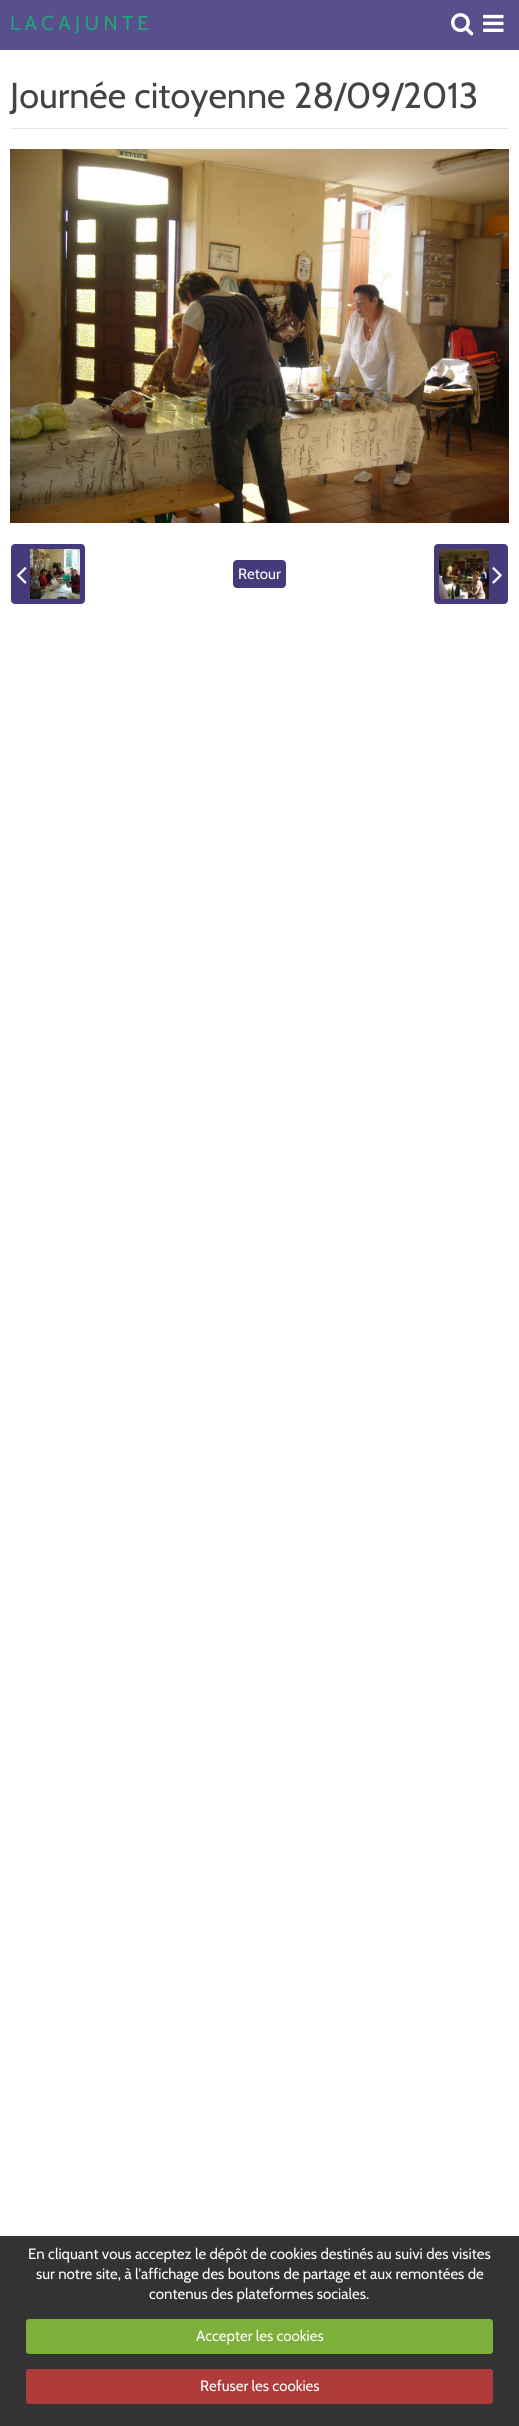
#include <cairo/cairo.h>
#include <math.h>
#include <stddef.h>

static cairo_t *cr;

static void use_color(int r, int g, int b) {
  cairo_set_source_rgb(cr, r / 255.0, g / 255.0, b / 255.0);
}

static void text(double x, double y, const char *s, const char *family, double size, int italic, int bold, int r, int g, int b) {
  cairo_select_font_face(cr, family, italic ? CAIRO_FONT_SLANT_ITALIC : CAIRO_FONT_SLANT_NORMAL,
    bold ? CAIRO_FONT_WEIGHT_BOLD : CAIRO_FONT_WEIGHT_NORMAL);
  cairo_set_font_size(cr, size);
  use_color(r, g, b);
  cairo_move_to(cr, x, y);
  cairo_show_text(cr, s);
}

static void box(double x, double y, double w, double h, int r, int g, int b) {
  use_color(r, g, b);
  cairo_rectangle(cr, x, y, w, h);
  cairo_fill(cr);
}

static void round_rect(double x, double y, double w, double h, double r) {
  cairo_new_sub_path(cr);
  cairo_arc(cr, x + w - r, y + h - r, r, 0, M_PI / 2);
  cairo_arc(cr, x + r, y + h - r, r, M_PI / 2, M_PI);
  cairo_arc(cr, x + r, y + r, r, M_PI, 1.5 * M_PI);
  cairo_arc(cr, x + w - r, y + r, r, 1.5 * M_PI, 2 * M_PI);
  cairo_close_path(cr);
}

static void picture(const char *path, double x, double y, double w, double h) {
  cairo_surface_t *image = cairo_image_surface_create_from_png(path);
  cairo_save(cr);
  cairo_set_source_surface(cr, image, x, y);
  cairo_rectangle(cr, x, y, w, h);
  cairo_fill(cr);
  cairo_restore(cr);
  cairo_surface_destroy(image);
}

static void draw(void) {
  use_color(255, 255, 255);
  cairo_paint(cr);
  box(0, 0, 519, 50, 89, 79, 141);
  picture("img_01.png", 451, 13, 23, 23);
  picture("img_02.png", 483, 14, 21, 18);
  box(10, 128, 499, 1, 228, 232, 233);
  picture("img_03.png", 10, 149, 499, 374);
  use_color(70, 59, 122);
  round_rect(11, 544, 74, 60, 4);
  cairo_fill(cr);
  picture("img_04.png", 16, 567, 11, 17);
  picture("img_05.png", 30, 549, 50, 50);
  round_rect(233, 560, 53, 28, 4);
  cairo_fill(cr);
  round_rect(434, 544, 74, 60, 4);
  cairo_fill(cr);
  picture("img_06.png", 439, 549, 50, 50);
  picture("img_07.png", 492, 567, 10, 17);
  box(0, 2236, 519, 190, 51, 51, 51);
  use_color(125, 175, 59);
  round_rect(26, 2319, 467, 35, 3);
  cairo_fill(cr);
  use_color(175, 59, 59);
  round_rect(26, 2369, 467, 35, 3);
  cairo_fill(cr);
  text(10, 30, "L A C A J U N T E", "Cabin", 20, 0, 0, 33, 165, 119);
  text(10, 108, "Journée citoyenne 28/09/2013", "Cabin", 36, 0, 0, 68, 68, 68);
  text(238, 579, "Retour", "Cabin", 15, 0, 0, 255, 255, 255);
  text(28, 2259, "En cliquant vous acceptez le dépôt de cookies destinés au suivi des visites", "Cabin", 15, 0, 0, 255, 255, 255);
  text(36, 2279, "sur notre site, à l'affichage des boutons de partage et aux remontées de", "Cabin", 15, 0, 0, 255, 255, 255);
  text(149, 2299, "contenus des plateformes sociales.", "Cabin", 15, 0, 0, 255, 255, 255);
  text(196, 2341, "Accepter les cookies", "Cabin", 15, 0, 0, 255, 255, 255);
  text(200, 2391, "Refuser les cookies", "Cabin", 15, 0, 0, 255, 255, 255);
}

int main(void) {
  cairo_surface_t *surface = cairo_image_surface_create(CAIRO_FORMAT_RGB24, 519, 2426);
  cr = cairo_create(surface);
  cairo_font_options_t *options = cairo_font_options_create();
  cairo_font_options_set_hint_metrics(options, CAIRO_HINT_METRICS_OFF);
  cairo_font_options_set_hint_style(options, CAIRO_HINT_STYLE_NONE);
  cairo_set_font_options(cr, options);
  cairo_set_miter_limit(cr, 4);
  draw();
  cairo_surface_write_to_png(surface, "out.png");
  cairo_font_options_destroy(options);
  cairo_destroy(cr);
  cairo_surface_destroy(surface);
  return 0;
}
